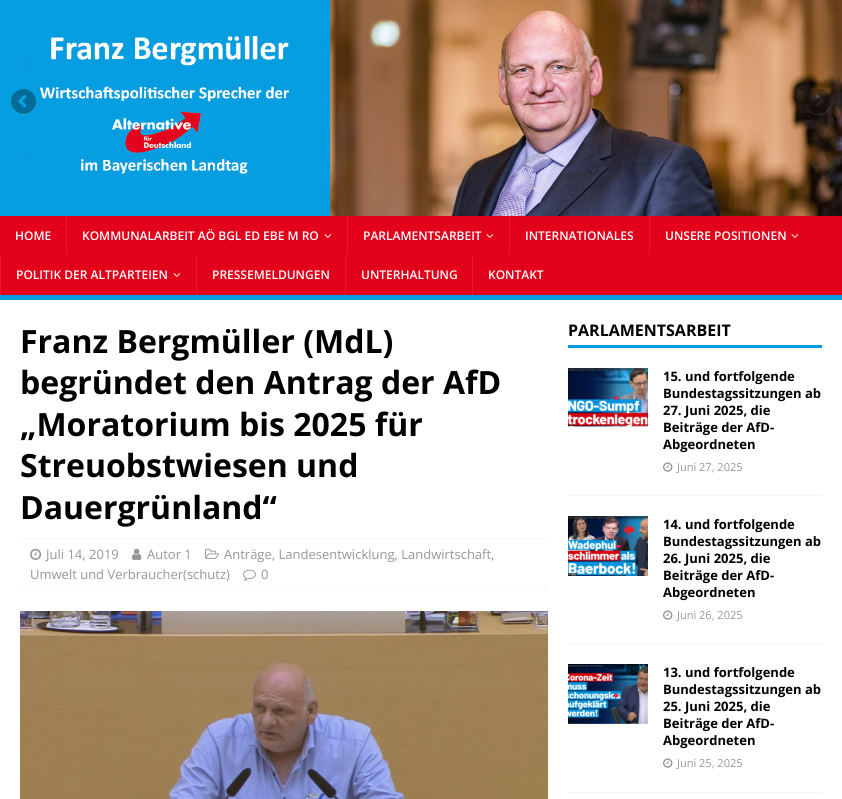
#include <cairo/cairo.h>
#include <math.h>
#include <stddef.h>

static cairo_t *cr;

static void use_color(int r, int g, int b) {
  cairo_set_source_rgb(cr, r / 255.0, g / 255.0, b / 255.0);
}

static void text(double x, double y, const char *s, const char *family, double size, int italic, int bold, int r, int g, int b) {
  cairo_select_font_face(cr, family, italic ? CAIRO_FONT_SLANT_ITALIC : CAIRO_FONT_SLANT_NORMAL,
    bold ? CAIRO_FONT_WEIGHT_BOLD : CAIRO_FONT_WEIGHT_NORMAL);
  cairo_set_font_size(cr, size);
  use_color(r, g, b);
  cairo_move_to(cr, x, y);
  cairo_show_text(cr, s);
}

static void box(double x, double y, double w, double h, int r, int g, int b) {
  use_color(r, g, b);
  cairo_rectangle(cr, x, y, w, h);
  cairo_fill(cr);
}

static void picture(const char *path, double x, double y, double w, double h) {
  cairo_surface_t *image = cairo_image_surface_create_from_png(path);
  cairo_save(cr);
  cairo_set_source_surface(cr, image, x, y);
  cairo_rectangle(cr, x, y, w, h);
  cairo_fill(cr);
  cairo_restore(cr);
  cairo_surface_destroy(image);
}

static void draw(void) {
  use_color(255, 255, 255);
  cairo_paint(cr);
  picture("img_01.png", 0, 0, 842, 216);
  picture("img_02.png", 11, 89, 25, 26);
  picture("img_03.png", 806, 89, 25, 26);
  box(0, 216, 842, 79, 226, 0, 26);
  box(0, 295, 842, 5, 0, 158, 224);
  box(66, 216, 1, 39, 229, 26, 49);
  picture("img_04.png", 324, 234, 8, 4);
  box(347, 216, 1, 39, 229, 26, 49);
  picture("img_04.png", 486, 234, 8, 4);
  box(509, 216, 1, 39, 229, 26, 49);
  box(649, 216, 1, 39, 229, 26, 49);
  picture("img_04.png", 791, 234, 8, 4);
  box(0, 255, 1, 40, 229, 26, 49);
  picture("img_04.png", 173, 273, 8, 4);
  box(196, 255, 1, 40, 229, 26, 49);
  box(345, 255, 1, 40, 229, 26, 49);
  box(472, 255, 1, 40, 229, 26, 49);
  cairo_new_path(cr);
  cairo_move_to(cr, 20, 538.5);
  cairo_line_to(cr, 548, 538.5);
  use_color(235, 235, 235);
  cairo_set_line_width(cr, 1);
  cairo_set_dash(cr, (double[]){1, 1}, 2, 0);
  cairo_stroke(cr);
  cairo_new_path(cr);
  cairo_move_to(cr, 20, 590.5);
  cairo_line_to(cr, 548, 590.5);
  cairo_stroke(cr);
  picture("img_05.png", 205, 548, 14, 11);
  picture("img_06.png", 30, 548, 12, 12);
  picture("img_07.png", 132, 548, 10, 12);
  picture("img_08.png", 243, 569, 13, 12);
  picture("img_09.png", 20, 611, 528, 188);
  box(568, 345, 254, 3, 0, 158, 224);
  cairo_new_path(cr);
  cairo_move_to(cr, 568, 495.5);
  cairo_line_to(cr, 822, 495.5);
  use_color(235, 235, 235);
  cairo_stroke(cr);
  picture("img_10.png", 568, 368, 80, 59);
  picture("img_11.png", 663, 462, 10, 10);
  cairo_new_path(cr);
  cairo_move_to(cr, 568, 643.5);
  cairo_line_to(cr, 822, 643.5);
  cairo_stroke(cr);
  picture("img_12.png", 568, 516, 80, 60);
  picture("img_11.png", 663, 610, 10, 10);
  cairo_new_path(cr);
  cairo_move_to(cr, 568, 792.5);
  cairo_line_to(cr, 822, 792.5);
  cairo_stroke(cr);
  picture("img_13.png", 568, 664, 80, 60);
  picture("img_11.png", 663, 758, 10, 10);
  text(15, 240, "HOME", "Open Sans SemiBold", 12, 0, 0, 255, 255, 255);
  text(82, 240, "KOMMUNALARBEIT AÖ BGL ED EBE M RO", "Open Sans SemiBold", 12, 0, 0, 255, 255, 255);
  text(363, 240, "PARLAMENTSARBEIT", "Open Sans SemiBold", 12, 0, 0, 255, 255, 255);
  text(525, 240, "INTERNATIONALES", "Open Sans SemiBold", 12, 0, 0, 255, 255, 255);
  text(665, 240, "UNSERE POSITIONEN", "Open Sans SemiBold", 12, 0, 0, 255, 255, 255);
  text(16, 279, "POLITIK DER ALTPARTEIEN", "Open Sans SemiBold", 12, 0, 0, 255, 255, 255);
  text(212, 279, "PRESSEMELDUNGEN", "Open Sans SemiBold", 12, 0, 0, 255, 255, 255);
  text(361, 279, "UNTERHALTUNG", "Open Sans SemiBold", 12, 0, 0, 255, 255, 255);
  text(488, 279, "KONTAKT", "Open Sans SemiBold", 12, 0, 0, 255, 255, 255);
  text(20, 353, "Franz Bergmüller (MdL)", "Open Sans", 32, 0, 1, 0, 0, 0);
  text(20, 394, "begründet den Antrag der AfD", "Open Sans", 32, 0, 1, 0, 0, 0);
  text(20, 436, "„Moratorium bis 2025 für", "Open Sans", 32, 0, 1, 0, 0, 0);
  text(20, 477, "Streuobstwiesen und", "Open Sans", 32, 0, 1, 0, 0, 0);
  text(20, 519, "Dauergrünland“", "Open Sans", 32, 0, 1, 0, 0, 0);
  text(224, 559, "Anträge, Landesentwicklung, Landwirtschaft,", "Open Sans", 13, 0, 0, 151, 151, 151);
  text(30, 579, "Umwelt und Verbraucher(schutz)", "Open Sans", 13, 0, 0, 151, 151, 151);
  text(46, 559, "Juli 14, 2019", "Open Sans", 13, 0, 0, 151, 151, 151);
  text(147, 559, "Autor 1", "Open Sans", 13, 0, 0, 151, 151, 151);
  text(261, 579, "0", "Open Sans", 13, 0, 0, 151, 151, 151);
  text(568, 336, "PARLAMENTSARBEIT", "Open Sans", 16, 0, 1, 0, 0, 0);
  text(663, 381, "15. und fortfolgende", "Open Sans", 13, 0, 1, 0, 0, 0);
  text(663, 398, "Bundestagssitzungen ab", "Open Sans", 13, 0, 1, 0, 0, 0);
  text(663, 415, "27. Juni 2025, die", "Open Sans", 13, 0, 1, 0, 0, 0);
  text(663, 432, "Beiträge der AfD-", "Open Sans", 13, 0, 1, 0, 0, 0);
  text(663, 449, "Abgeordneten", "Open Sans", 13, 0, 1, 0, 0, 0);
  text(677, 471, "Juni 27, 2025", "Open Sans", 11, 0, 0, 151, 151, 151);
  text(663, 529, "14. und fortfolgende", "Open Sans", 13, 0, 1, 0, 0, 0);
  text(663, 546, "Bundestagssitzungen ab", "Open Sans", 13, 0, 1, 0, 0, 0);
  text(663, 563, "26. Juni 2025, die", "Open Sans", 13, 0, 1, 0, 0, 0);
  text(663, 580, "Beiträge der AfD-", "Open Sans", 13, 0, 1, 0, 0, 0);
  text(663, 597, "Abgeordneten", "Open Sans", 13, 0, 1, 0, 0, 0);
  text(677, 619, "Juni 26, 2025", "Open Sans", 11, 0, 0, 151, 151, 151);
  text(663, 677, "13. und fortfolgende", "Open Sans", 13, 0, 1, 0, 0, 0);
  text(663, 694, "Bundestagssitzungen ab", "Open Sans", 13, 0, 1, 0, 0, 0);
  text(663, 711, "25. Juni 2025, die", "Open Sans", 13, 0, 1, 0, 0, 0);
  text(663, 728, "Beiträge der AfD-", "Open Sans", 13, 0, 1, 0, 0, 0);
  text(663, 745, "Abgeordneten", "Open Sans", 13, 0, 1, 0, 0, 0);
  text(677, 767, "Juni 25, 2025", "Open Sans", 11, 0, 0, 151, 151, 151);
}

int main(void) {
  cairo_surface_t *surface = cairo_image_surface_create(CAIRO_FORMAT_RGB24, 842, 799);
  cr = cairo_create(surface);
  cairo_font_options_t *options = cairo_font_options_create();
  cairo_font_options_set_hint_metrics(options, CAIRO_HINT_METRICS_OFF);
  cairo_font_options_set_hint_style(options, CAIRO_HINT_STYLE_NONE);
  cairo_set_font_options(cr, options);
  cairo_set_miter_limit(cr, 4);
  draw();
  cairo_surface_write_to_png(surface, "out.png");
  cairo_font_options_destroy(options);
  cairo_destroy(cr);
  cairo_surface_destroy(surface);
  return 0;
}
